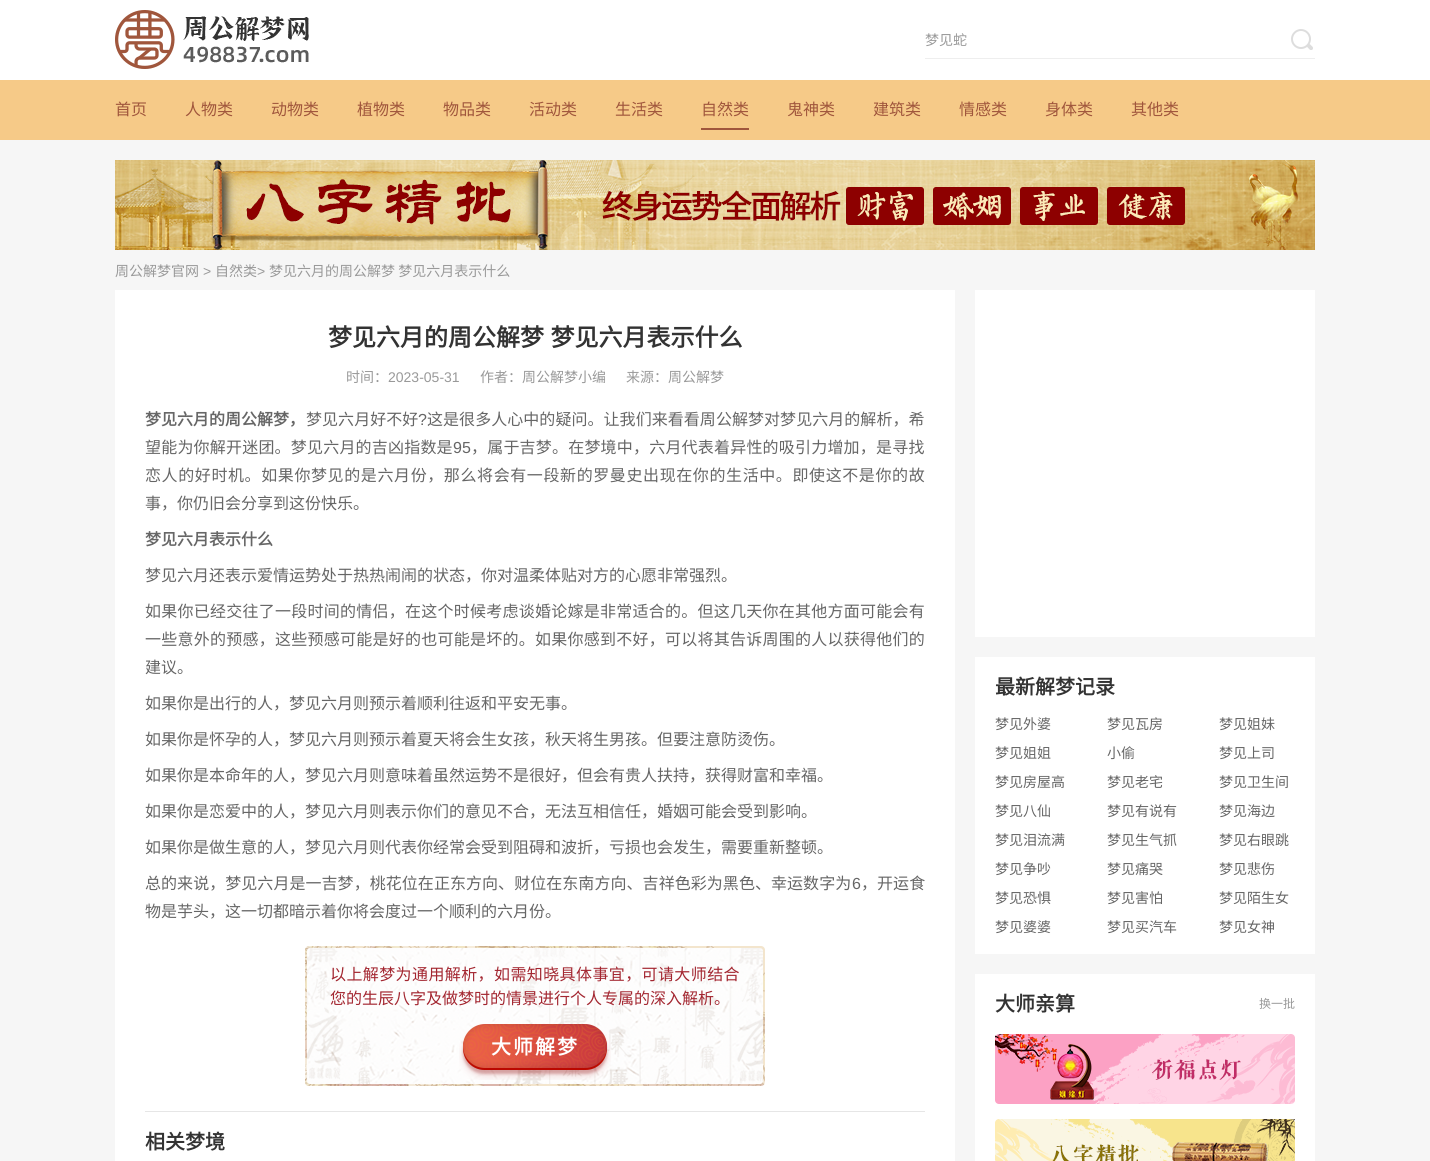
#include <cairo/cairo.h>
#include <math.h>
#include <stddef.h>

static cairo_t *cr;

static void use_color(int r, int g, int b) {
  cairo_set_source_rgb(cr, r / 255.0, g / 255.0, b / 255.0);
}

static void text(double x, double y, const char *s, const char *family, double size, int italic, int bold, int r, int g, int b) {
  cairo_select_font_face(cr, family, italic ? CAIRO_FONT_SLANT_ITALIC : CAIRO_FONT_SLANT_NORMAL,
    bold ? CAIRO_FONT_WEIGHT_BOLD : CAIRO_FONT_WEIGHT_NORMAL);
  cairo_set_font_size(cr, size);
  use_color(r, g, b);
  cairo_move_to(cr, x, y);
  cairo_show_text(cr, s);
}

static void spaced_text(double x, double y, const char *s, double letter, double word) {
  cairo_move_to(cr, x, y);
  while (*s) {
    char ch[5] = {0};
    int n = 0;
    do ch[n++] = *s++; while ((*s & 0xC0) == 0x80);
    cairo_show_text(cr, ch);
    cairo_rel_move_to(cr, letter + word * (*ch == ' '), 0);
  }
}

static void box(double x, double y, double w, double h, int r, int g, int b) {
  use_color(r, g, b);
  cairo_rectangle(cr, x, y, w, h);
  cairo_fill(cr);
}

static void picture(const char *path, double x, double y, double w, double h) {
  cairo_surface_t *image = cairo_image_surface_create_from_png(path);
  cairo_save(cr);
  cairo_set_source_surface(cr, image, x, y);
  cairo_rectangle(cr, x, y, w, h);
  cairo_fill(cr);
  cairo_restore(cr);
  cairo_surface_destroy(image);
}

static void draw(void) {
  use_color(246, 246, 246);
  cairo_paint(cr);
  box(0, 0, 1430, 80, 255, 255, 255);
  picture("img_01.png", 115, 10, 194, 59);
  box(925, 58, 390, 1, 238, 238, 238);
  picture("img_02.png", 1291, 29, 22, 21);
  box(0, 80, 1430, 60, 246, 202, 136);
  box(701, 128, 48, 2, 160, 86, 60);
  picture("img_03.png", 115, 160, 1200, 90);
  box(115, 290, 840, 871, 255, 255, 255);
  picture("img_04.png", 305, 946, 460, 140);
  picture("img_05.png", 459, 1024, 152, 56);
  box(145, 1111, 780, 1, 230, 230, 230);
  box(975, 290, 340, 347, 255, 255, 255);
  box(975, 657, 340, 297, 255, 255, 255);
  box(975, 974, 340, 187, 255, 255, 255);
  picture("img_06.png", 995, 1034, 300, 70);
  picture("img_07.png", 995, 1119, 300, 42);
  text(925, 45, "梦见蛇", "Noto Sans CJK SC", 14, 0, 0, 153, 153, 153);
  text(115, 115, "首页", "Noto Sans CJK SC", 16, 0, 0, 160, 86, 60);
  text(185, 115, "人物类", "Noto Sans CJK SC", 16, 0, 0, 160, 86, 60);
  text(271, 115, "动物类", "Noto Sans CJK SC", 16, 0, 0, 160, 86, 60);
  text(357, 115, "植物类", "Noto Sans CJK SC", 16, 0, 0, 160, 86, 60);
  text(443, 115, "物品类", "Noto Sans CJK SC", 16, 0, 0, 160, 86, 60);
  text(529, 115, "活动类", "Noto Sans CJK SC", 16, 0, 0, 160, 86, 60);
  text(615, 115, "生活类", "Noto Sans CJK SC", 16, 0, 0, 160, 86, 60);
  text(701, 115, "自然类", "Noto Sans CJK SC", 16, 0, 0, 160, 86, 60);
  text(787, 115, "鬼神类", "Noto Sans CJK SC", 16, 0, 0, 160, 86, 60);
  text(873, 115, "建筑类", "Noto Sans CJK SC", 16, 0, 0, 160, 86, 60);
  text(959, 115, "情感类", "Noto Sans CJK SC", 16, 0, 0, 160, 86, 60);
  text(1045, 115, "身体类", "Noto Sans CJK SC", 16, 0, 0, 160, 86, 60);
  text(1131, 115, "其他类", "Noto Sans CJK SC", 16, 0, 0, 160, 86, 60);
  text(115, 276, "周公解梦官网", "Noto Sans CJK SC", 14, 0, 0, 153, 153, 153);
  text(203, 276, ">", "Liberation Sans", 14, 0, 0, 153, 153, 153);
  text(215, 276, "自然类", "Noto Sans CJK SC", 14, 0, 0, 153, 153, 153);
  text(257, 276, ">", "Liberation Sans", 14, 0, 0, 153, 153, 153);
  text(269, 276, "梦见六月的周公解梦 梦见六月表示什么", "Noto Sans CJK SC", 14, 0, 0, 153, 153, 153);
  cairo_select_font_face(cr, "Noto Sans CJK SC", CAIRO_FONT_SLANT_NORMAL, CAIRO_FONT_WEIGHT_BOLD);
  cairo_set_font_size(cr, 24);
  use_color(51, 51, 51);
  spaced_text(328, 346, "梦见六月的周公解梦 梦见六月表示什么", 0, 1);
  text(346, 382, "时间：", "Noto Sans CJK SC", 14, 0, 0, 153, 153, 153);
  text(388, 382, "2023-05-31", "Liberation Sans", 14, 0, 0, 153, 153, 153);
  text(480, 382, "作者：周公解梦小编", "Noto Sans CJK SC", 14, 0, 0, 153, 153, 153);
  text(626, 382, "来源：周公解梦", "Noto Sans CJK SC", 14, 0, 0, 153, 153, 153);
  text(145, 425, "梦见六月的周公解梦，", "Noto Sans CJK SC", 16, 0, 1, 102, 102, 102);
  cairo_select_font_face(cr, "Noto Sans CJK SC", CAIRO_FONT_SLANT_NORMAL, CAIRO_FONT_WEIGHT_NORMAL);
  spaced_text(306, 425, "梦见六月好不好", 0.05, 0);
  cairo_select_font_face(cr, "Liberation Sans", CAIRO_FONT_SLANT_NORMAL, CAIRO_FONT_WEIGHT_NORMAL);
  spaced_text(418, 425, "?", 0.05, 0);
  cairo_select_font_face(cr, "Noto Sans CJK SC", CAIRO_FONT_SLANT_NORMAL, CAIRO_FONT_WEIGHT_NORMAL);
  spaced_text(427, 425, "这是很多人心中的疑问。让我们来看看周公解梦对梦见六月的解析，希", 0.05, 0);
  spaced_text(145, 453, "望能为你解开迷团。梦见六月的吉凶指数是", 0.2, 0);
  cairo_select_font_face(cr, "Liberation Sans", CAIRO_FONT_SLANT_NORMAL, CAIRO_FONT_WEIGHT_NORMAL);
  spaced_text(453, 453, "95", 0.2, 0);
  cairo_select_font_face(cr, "Noto Sans CJK SC", CAIRO_FONT_SLANT_NORMAL, CAIRO_FONT_WEIGHT_NORMAL);
  spaced_text(471, 453, "，属于吉梦。在梦境中，六月代表着异性的吸引力增加，是寻找", 0.2, 0);
  spaced_text(145, 481, "恋人的好时机。如果你梦见的是六月份，那么将会有一段新的罗曼史出现在你的生活中。即使这不是你的故", 0.6, 0);
  text(145, 509, "事，你仍旧会分享到这份快乐。", "Noto Sans CJK SC", 16, 0, 0, 102, 102, 102);
  text(145, 545, "梦见六月表示什么", "Noto Sans CJK SC", 16, 0, 1, 102, 102, 102);
  text(145, 581, "梦见六月还表示爱情运势处于热热闹闹的状态，你对温柔体贴对方的心愿非常强烈。", "Noto Sans CJK SC", 16, 0, 0, 102, 102, 102);
  spaced_text(145, 617, "如果你已经交往了一段时间的情侣，在这个时候考虑谈婚论嫁是非常适合的。但这几天你在其他方面可能会有", 0.25, 0);
  spaced_text(145, 645, "一些意外的预感，这些预感可能是好的也可能是坏的。如果你感到不好，可以将其告诉周围的人以获得他们的", 0.25, 0);
  text(145, 673, "建议。", "Noto Sans CJK SC", 16, 0, 0, 102, 102, 102);
  text(145, 709, "如果你是出行的人，梦见六月则预示着顺利往返和平安无事。", "Noto Sans CJK SC", 16, 0, 0, 102, 102, 102);
  text(145, 745, "如果你是怀孕的人，梦见六月则预示着夏天将会生女孩，秋天将生男孩。但要注意防烫伤。", "Noto Sans CJK SC", 16, 0, 0, 102, 102, 102);
  text(145, 781, "如果你是本命年的人，梦见六月则意味着虽然运势不是很好，但会有贵人扶持，获得财富和幸福。", "Noto Sans CJK SC", 16, 0, 0, 102, 102, 102);
  text(145, 817, "如果你是恋爱中的人，梦见六月则表示你们的意见不合，无法互相信任，婚姻可能会受到影响。", "Noto Sans CJK SC", 16, 0, 0, 102, 102, 102);
  text(145, 853, "如果你是做生意的人，梦见六月则代表你经常会受到阻碍和波折，亏损也会发生，需要重新整顿。", "Noto Sans CJK SC", 16, 0, 0, 102, 102, 102);
  spaced_text(145, 889, "总的来说，梦见六月是一吉梦，桃花位在正东方向、财位在东南方向、吉祥色彩为黑色、幸运数字为", 0.05, 0);
  cairo_select_font_face(cr, "Liberation Sans", CAIRO_FONT_SLANT_NORMAL, CAIRO_FONT_WEIGHT_NORMAL);
  spaced_text(852, 889, "6", 0.05, 0);
  cairo_select_font_face(cr, "Noto Sans CJK SC", CAIRO_FONT_SLANT_NORMAL, CAIRO_FONT_WEIGHT_NORMAL);
  spaced_text(861, 889, "，开运食", 0.05, 0);
  text(145, 917, "物是芋头，这一切都暗示着你将会度过一个顺利的六月份。", "Noto Sans CJK SC", 16, 0, 0, 102, 102, 102);
  use_color(163, 38, 48);
  spaced_text(330, 980, "以上解梦为通用解析，如需知晓具体事宜，可请大师结合", 0.4, 0);
  text(330, 1004, "您的生辰八字及做梦时的情景进行个人专属的深入解析。", "Noto Sans CJK SC", 16, 0, 0, 163, 38, 48);
  cairo_select_font_face(cr, "Noto Sans CJK SC", CAIRO_FONT_SLANT_NORMAL, CAIRO_FONT_WEIGHT_BOLD);
  cairo_set_font_size(cr, 20);
  use_color(255, 255, 255);
  spaced_text(491, 1054, "大师解梦", 2, 0);
  text(145, 1149, "相关梦境", "Noto Sans CJK SC", 20, 0, 1, 51, 51, 51);
  text(995, 694, "最新解梦记录", "Noto Sans CJK SC", 20, 0, 1, 51, 51, 51);
  text(995, 729, "梦见外婆", "Noto Sans CJK SC", 14, 0, 0, 102, 102, 102);
  text(1107, 729, "梦见瓦房", "Noto Sans CJK SC", 14, 0, 0, 102, 102, 102);
  text(1219, 729, "梦见姐妹", "Noto Sans CJK SC", 14, 0, 0, 102, 102, 102);
  text(995, 758, "梦见姐姐", "Noto Sans CJK SC", 14, 0, 0, 102, 102, 102);
  text(1107, 758, "小偷", "Noto Sans CJK SC", 14, 0, 0, 102, 102, 102);
  text(1219, 758, "梦见上司", "Noto Sans CJK SC", 14, 0, 0, 102, 102, 102);
  text(995, 787, "梦见房屋高", "Noto Sans CJK SC", 14, 0, 0, 102, 102, 102);
  text(1107, 787, "梦见老宅", "Noto Sans CJK SC", 14, 0, 0, 102, 102, 102);
  text(1219, 787, "梦见卫生间", "Noto Sans CJK SC", 14, 0, 0, 102, 102, 102);
  text(995, 816, "梦见八仙", "Noto Sans CJK SC", 14, 0, 0, 102, 102, 102);
  text(1107, 816, "梦见有说有", "Noto Sans CJK SC", 14, 0, 0, 102, 102, 102);
  text(1219, 816, "梦见海边", "Noto Sans CJK SC", 14, 0, 0, 102, 102, 102);
  text(995, 845, "梦见泪流满", "Noto Sans CJK SC", 14, 0, 0, 102, 102, 102);
  text(1107, 845, "梦见生气抓", "Noto Sans CJK SC", 14, 0, 0, 102, 102, 102);
  text(1219, 845, "梦见右眼跳", "Noto Sans CJK SC", 14, 0, 0, 102, 102, 102);
  text(995, 874, "梦见争吵", "Noto Sans CJK SC", 14, 0, 0, 102, 102, 102);
  text(1107, 874, "梦见痛哭", "Noto Sans CJK SC", 14, 0, 0, 102, 102, 102);
  text(1219, 874, "梦见悲伤", "Noto Sans CJK SC", 14, 0, 0, 102, 102, 102);
  text(995, 903, "梦见恐惧", "Noto Sans CJK SC", 14, 0, 0, 102, 102, 102);
  text(1107, 903, "梦见害怕", "Noto Sans CJK SC", 14, 0, 0, 102, 102, 102);
  text(1219, 903, "梦见陌生女", "Noto Sans CJK SC", 14, 0, 0, 102, 102, 102);
  text(995, 932, "梦见婆婆", "Noto Sans CJK SC", 14, 0, 0, 102, 102, 102);
  text(1107, 932, "梦见买汽车", "Noto Sans CJK SC", 14, 0, 0, 102, 102, 102);
  text(1219, 932, "梦见女神", "Noto Sans CJK SC", 14, 0, 0, 102, 102, 102);
  text(995, 1011, "大师亲算", "Noto Sans CJK SC", 20, 0, 1, 51, 51, 51);
  text(1259, 1008, "换一批", "Noto Sans CJK SC", 12, 0, 0, 153, 153, 153);
}

int main(void) {
  cairo_surface_t *surface = cairo_image_surface_create(CAIRO_FORMAT_RGB24, 1430, 1161);
  cr = cairo_create(surface);
  cairo_font_options_t *options = cairo_font_options_create();
  cairo_font_options_set_hint_metrics(options, CAIRO_HINT_METRICS_OFF);
  cairo_font_options_set_hint_style(options, CAIRO_HINT_STYLE_NONE);
  cairo_set_font_options(cr, options);
  cairo_set_miter_limit(cr, 4);
  draw();
  cairo_surface_write_to_png(surface, "out.png");
  cairo_font_options_destroy(options);
  cairo_destroy(cr);
  cairo_surface_destroy(surface);
  return 0;
}
